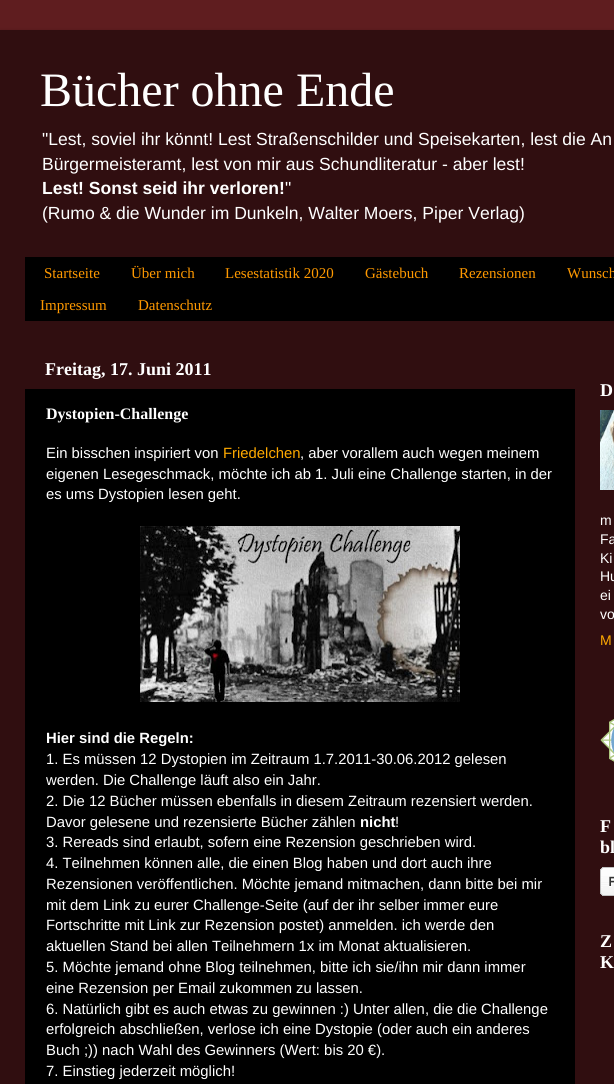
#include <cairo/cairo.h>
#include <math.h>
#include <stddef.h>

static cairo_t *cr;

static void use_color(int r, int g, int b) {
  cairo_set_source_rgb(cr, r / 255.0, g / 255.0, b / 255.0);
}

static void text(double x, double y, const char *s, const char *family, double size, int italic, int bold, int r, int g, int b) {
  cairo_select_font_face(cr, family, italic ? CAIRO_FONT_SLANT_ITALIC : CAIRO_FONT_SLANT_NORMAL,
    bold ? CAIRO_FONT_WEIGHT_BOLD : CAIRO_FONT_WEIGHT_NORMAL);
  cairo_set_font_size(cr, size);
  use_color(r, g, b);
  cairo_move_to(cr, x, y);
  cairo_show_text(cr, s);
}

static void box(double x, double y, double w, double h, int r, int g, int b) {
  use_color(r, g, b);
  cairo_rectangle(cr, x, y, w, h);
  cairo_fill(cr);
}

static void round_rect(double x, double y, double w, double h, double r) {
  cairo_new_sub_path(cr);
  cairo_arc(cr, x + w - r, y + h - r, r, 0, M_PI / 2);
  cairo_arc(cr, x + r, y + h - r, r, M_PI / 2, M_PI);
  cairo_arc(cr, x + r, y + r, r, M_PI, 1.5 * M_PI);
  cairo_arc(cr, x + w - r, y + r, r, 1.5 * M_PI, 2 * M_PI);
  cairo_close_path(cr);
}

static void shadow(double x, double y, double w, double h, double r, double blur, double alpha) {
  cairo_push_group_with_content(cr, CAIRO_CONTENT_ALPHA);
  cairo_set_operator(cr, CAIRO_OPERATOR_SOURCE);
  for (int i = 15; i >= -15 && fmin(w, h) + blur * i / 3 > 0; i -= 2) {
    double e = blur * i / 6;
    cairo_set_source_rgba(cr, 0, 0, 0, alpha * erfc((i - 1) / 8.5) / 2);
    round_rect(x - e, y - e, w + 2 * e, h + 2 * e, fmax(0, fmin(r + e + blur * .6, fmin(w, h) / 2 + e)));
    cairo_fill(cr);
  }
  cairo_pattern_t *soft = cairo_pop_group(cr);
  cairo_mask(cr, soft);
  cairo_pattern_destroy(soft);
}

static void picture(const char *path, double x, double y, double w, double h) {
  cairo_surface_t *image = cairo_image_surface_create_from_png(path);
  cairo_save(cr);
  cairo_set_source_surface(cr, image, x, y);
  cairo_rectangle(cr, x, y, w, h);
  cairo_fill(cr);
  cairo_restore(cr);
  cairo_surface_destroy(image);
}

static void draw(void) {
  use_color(95, 29, 31);
  cairo_paint(cr);
  use_color(0, 0, 0);
  shadow(0, 30, 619, 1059, 0, 1.5, 0.15);
  box(0, 30, 614, 1054, 48, 14, 16);
  box(25, 257, 589, 64, 0, 0, 0);
  box(25, 389, 550, 695, 0, 0, 0);
  picture("img_01.png", 140, 526, 320, 176);
  picture("img_02.png", 600, 410, 14, 80);
  picture("img_03.png", 600, 719, 14, 43);
  picture("img_04.png", 600, 867, 14, 29);
  text(40, 106, "Bücher ohne Ende", "Liberation Serif", 48, 0, 0, 255, 255, 255);
  text(42, 145, "\"Lest, soviel ihr könnt! Lest Straßenschilder und Speisekarten, lest die An", "Liberation Sans", 17.55, 0, 0, 255, 255, 255);
  text(42, 170, "Bürgermeisteramt, lest von mir aus Schundliteratur - aber lest!", "Liberation Sans", 17.55, 0, 0, 255, 255, 255);
  text(42, 194, "Lest! Sonst seid ihr verloren!", "Liberation Sans", 17.55, 0, 1, 255, 255, 255);
  text(285, 194, "\"", "Liberation Sans", 17.55, 0, 0, 255, 255, 255);
  text(42, 219, "(Rumo & die Wunder im Dunkeln, Walter Moers, Piper Verlag)", "Liberation Sans", 17.55, 0, 0, 255, 255, 255);
  text(44, 278, "Startseite", "Liberation Serif", 15, 0, 0, 255, 153, 0);
  text(131, 278, "Über mich", "Liberation Serif", 15, 0, 0, 255, 153, 0);
  text(225, 278, "Lesestatistik 2020", "Liberation Serif", 15, 0, 0, 255, 153, 0);
  text(365, 278, "Gästebuch", "Liberation Serif", 15, 0, 0, 255, 153, 0);
  text(459, 278, "Rezensionen", "Liberation Serif", 15, 0, 0, 255, 153, 0);
  text(567, 278, "Wunsch", "Liberation Serif", 15, 0, 0, 255, 153, 0);
  text(40, 310, "Impressum", "Liberation Serif", 15, 0, 0, 255, 153, 0);
  text(138, 310, "Datenschutz", "Liberation Serif", 15, 0, 0, 255, 153, 0);
  text(45, 375, "Freitag, 17. Juni 2011", "Liberation Serif", 18, 0, 1, 255, 255, 255);
  text(46, 419, "Dystopien-Challenge", "Liberation Serif", 16, 0, 1, 255, 255, 255);
  text(46, 458, "Ein bisschen inspiriert von", "Liberation Sans", 14.85, 0, 0, 255, 255, 255);
  text(223, 458, "Friedelchen", "Liberation Sans", 14.85, 0, 0, 255, 170, 0);
  text(300, 458, ", aber vorallem auch wegen meinem", "Liberation Sans", 14.85, 0, 0, 255, 255, 255);
  text(46, 479, "eigenen Lesegeschmack, möchte ich ab 1. Juli eine Challenge starten, in der", "Liberation Sans", 14.85, 0, 0, 255, 255, 255);
  text(46, 499, "es ums Dystopien lesen geht.", "Liberation Sans", 14.85, 0, 0, 255, 255, 255);
  text(46, 743, "Hier sind die Regeln:", "Liberation Sans", 14.85, 0, 1, 255, 255, 255);
  text(46, 764, "1. Es müssen 12 Dystopien im Zeitraum 1.7.2011-30.06.2012 gelesen", "Liberation Sans", 14.85, 0, 0, 255, 255, 255);
  text(46, 785, "werden. Die Challenge läuft also ein Jahr.", "Liberation Sans", 14.85, 0, 0, 255, 255, 255);
  text(46, 806, "2. Die 12 Bücher müssen ebenfalls in diesem Zeitraum rezensiert werden.", "Liberation Sans", 14.85, 0, 0, 255, 255, 255);
  text(46, 827, "Davor gelesene und rezensierte Bücher zählen", "Liberation Sans", 14.85, 0, 0, 255, 255, 255);
  text(360, 827, "nicht", "Liberation Sans", 14.85, 0, 1, 255, 255, 255);
  text(395, 827, "!", "Liberation Sans", 14.85, 0, 0, 255, 255, 255);
  text(46, 847, "3. Rereads sind erlaubt, sofern eine Rezension geschrieben wird.", "Liberation Sans", 14.85, 0, 0, 255, 255, 255);
  text(46, 868, "4. Teilnehmen können alle, die einen Blog haben und dort auch ihre", "Liberation Sans", 14.85, 0, 0, 255, 255, 255);
  text(46, 889, "Rezensionen veröffentlichen. Möchte jemand mitmachen, dann bitte bei mir", "Liberation Sans", 14.85, 0, 0, 255, 255, 255);
  text(46, 910, "mit dem Link zu eurer Challenge-Seite (auf der ihr selber immer eure", "Liberation Sans", 14.85, 0, 0, 255, 255, 255);
  text(46, 930, "Fortschritte mit Link zur Rezension postet) anmelden. ich werde den", "Liberation Sans", 14.85, 0, 0, 255, 255, 255);
  text(46, 951, "aktuellen Stand bei allen Teilnehmern 1x im Monat aktualisieren.", "Liberation Sans", 14.85, 0, 0, 255, 255, 255);
  text(46, 972, "5. Möchte jemand ohne Blog teilnehmen, bitte ich sie/ihn mir dann immer", "Liberation Sans", 14.85, 0, 0, 255, 255, 255);
  text(46, 993, "eine Rezension per Email zukommen zu lassen.", "Liberation Sans", 14.85, 0, 0, 255, 255, 255);
  text(46, 1014, "6. Natürlich gibt es auch etwas zu gewinnen :) Unter allen, die die Challenge", "Liberation Sans", 14.85, 0, 0, 255, 255, 255);
  text(46, 1034, "erfolgreich abschließen, verlose ich eine Dystopie (oder auch ein anderes", "Liberation Sans", 14.85, 0, 0, 255, 255, 255);
  text(46, 1055, "Buch ;)) nach Wahl des Gewinners (Wert: bis 20 €).", "Liberation Sans", 14.85, 0, 0, 255, 255, 255);
  text(46, 1076, "7. Einstieg jederzeit möglich!", "Liberation Sans", 14.85, 0, 0, 255, 255, 255);
  text(600, 396, "D", "Liberation Serif", 18, 0, 1, 255, 255, 255);
  text(600, 525, "m", "Liberation Sans", 14, 0, 0, 255, 255, 255);
  text(600, 544, "Fa", "Liberation Sans", 14, 0, 0, 255, 255, 255);
  text(600, 563, "Ki", "Liberation Sans", 14, 0, 0, 255, 255, 255);
  text(600, 581, "Hu", "Liberation Sans", 14, 0, 0, 255, 255, 255);
  text(600, 600, "ei", "Liberation Sans", 14, 0, 0, 255, 255, 255);
  text(600, 619, "vo", "Liberation Sans", 14, 0, 0, 255, 255, 255);
  text(600, 645, "M", "Liberation Sans", 14, 0, 0, 255, 170, 0);
  text(600, 832, "F", "Liberation Serif", 18, 0, 1, 255, 255, 255);
  text(600, 853, "bl", "Liberation Serif", 18, 0, 1, 255, 255, 255);
  text(600, 947, "Z", "Liberation Serif", 18, 0, 1, 255, 255, 255);
  text(600, 968, "K", "Liberation Serif", 18, 0, 1, 255, 255, 255);
}

int main(void) {
  cairo_surface_t *surface = cairo_image_surface_create(CAIRO_FORMAT_RGB24, 614, 1084);
  cr = cairo_create(surface);
  cairo_font_options_t *options = cairo_font_options_create();
  cairo_font_options_set_hint_metrics(options, CAIRO_HINT_METRICS_OFF);
  cairo_font_options_set_hint_style(options, CAIRO_HINT_STYLE_NONE);
  cairo_set_font_options(cr, options);
  cairo_set_miter_limit(cr, 4);
  draw();
  cairo_surface_write_to_png(surface, "out.png");
  cairo_font_options_destroy(options);
  cairo_destroy(cr);
  cairo_surface_destroy(surface);
  return 0;
}
